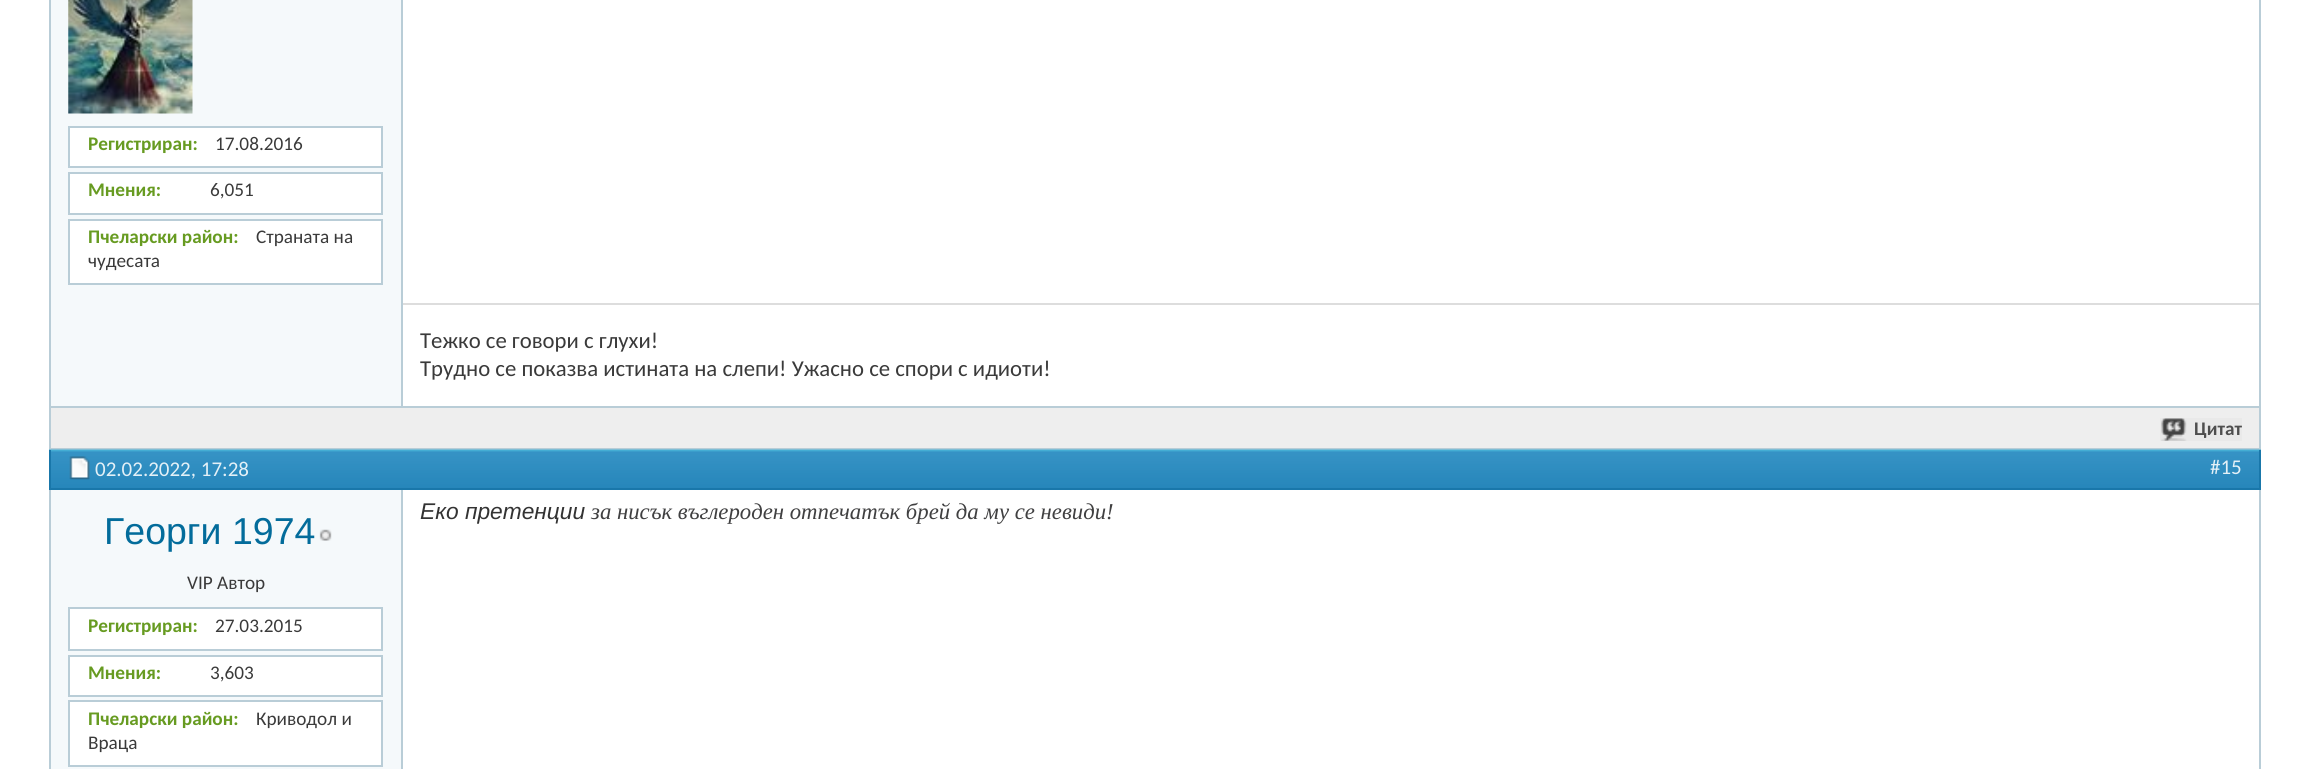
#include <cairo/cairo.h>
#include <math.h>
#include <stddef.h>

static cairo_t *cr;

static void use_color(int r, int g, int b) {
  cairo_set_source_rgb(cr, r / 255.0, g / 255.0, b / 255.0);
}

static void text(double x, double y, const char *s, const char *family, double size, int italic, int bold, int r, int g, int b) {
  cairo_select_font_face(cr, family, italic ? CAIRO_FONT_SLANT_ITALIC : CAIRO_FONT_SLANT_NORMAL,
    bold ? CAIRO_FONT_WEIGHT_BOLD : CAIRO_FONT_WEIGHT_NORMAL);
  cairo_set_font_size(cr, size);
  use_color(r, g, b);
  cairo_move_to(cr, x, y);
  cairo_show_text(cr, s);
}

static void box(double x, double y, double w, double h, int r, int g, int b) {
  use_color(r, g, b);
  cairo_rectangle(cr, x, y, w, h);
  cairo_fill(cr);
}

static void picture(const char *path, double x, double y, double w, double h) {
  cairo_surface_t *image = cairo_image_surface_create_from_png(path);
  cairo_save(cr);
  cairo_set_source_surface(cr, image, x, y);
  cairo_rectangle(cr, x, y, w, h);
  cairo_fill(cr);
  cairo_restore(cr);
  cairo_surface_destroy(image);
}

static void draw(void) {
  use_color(255, 255, 255);
  cairo_paint(cr);
  cairo_rectangle(cr, 50, -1, 2210, 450);
  use_color(185, 205, 215);
  cairo_stroke(cr);
  box(51, 0, 350, 406, 245, 249, 251);
  picture("img_01.png", 68, 0, 125, 114);
  use_color(255, 255, 255);
  cairo_rectangle(cr, 69, 127, 313, 40);
  cairo_fill_preserve(cr);
  use_color(185, 205, 215);
  cairo_stroke(cr);
  use_color(255, 255, 255);
  cairo_rectangle(cr, 69, 173, 313, 41);
  cairo_fill_preserve(cr);
  use_color(185, 205, 215);
  cairo_stroke(cr);
  use_color(255, 255, 255);
  cairo_rectangle(cr, 69, 220, 313, 64);
  cairo_fill_preserve(cr);
  use_color(185, 205, 215);
  cairo_stroke(cr);
  box(401, 0, 2, 406, 185, 205, 215);
  box(403, 303, 1856, 2, 221, 221, 221);
  box(51, 406, 2208, 2, 185, 205, 215);
  box(51, 408, 2208, 40, 238, 238, 238);
  box(2160, 418, 82, 23, 233, 233, 233);
  picture("img_02.png", 2161, 418, 26, 23);
  cairo_rectangle(cr, 50, 451, 2210, 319);
  use_color(185, 205, 215);
  cairo_stroke(cr);
  picture("img_03.png", 49, 449, 2212, 39);
  box(2259, 450, 2, 40, 25, 119, 170);
  box(49, 488, 2212, 2, 25, 119, 170);
  box(49, 450, 2, 40, 25, 119, 170);
  picture("img_04.png", 69, 456, 21, 24);
  box(51, 490, 350, 279, 245, 249, 251);
  box(401, 490, 2, 279, 185, 205, 215);
  picture("img_05.png", 319, 529, 13, 12);
  use_color(255, 255, 255);
  cairo_rectangle(cr, 69, 608, 313, 42);
  cairo_fill_preserve(cr);
  use_color(185, 205, 215);
  cairo_stroke(cr);
  use_color(255, 255, 255);
  cairo_rectangle(cr, 69, 656, 313, 40);
  cairo_fill_preserve(cr);
  use_color(185, 205, 215);
  cairo_stroke(cr);
  use_color(255, 255, 255);
  cairo_rectangle(cr, 69, 701, 313, 65);
  cairo_fill_preserve(cr);
  use_color(185, 205, 215);
  cairo_stroke(cr);
  text(88, 150, "Регистриран:", "Carlito", 19.25, 0, 1, 103, 155, 33);
  text(215, 150, "17.08.2016", "Carlito", 19.25, 0, 0, 58, 58, 58);
  text(88, 196, "Мнения:", "Carlito", 19.25, 0, 1, 103, 155, 33);
  text(210, 196, "6,051", "Carlito", 19.25, 0, 0, 58, 58, 58);
  text(88, 243, "Пчеларски район:", "Carlito", 19.25, 0, 1, 103, 155, 33);
  text(256, 243, "Страната на", "Carlito", 19.25, 0, 0, 58, 58, 58);
  text(88, 267, "чудесата", "Carlito", 19.25, 0, 0, 58, 58, 58);
  text(420, 348, "Тежко се говори с глухи!", "Carlito", 22.75, 0, 0, 58, 58, 58);
  text(420, 376, "Трудно се показва истината на слепи! Ужасно се спори с идиоти!", "Carlito", 22.75, 0, 0, 58, 58, 58);
  text(2194, 435, "Цитат", "Carlito", 19.25, 0, 1, 78, 78, 78);
  text(95, 476, "02.02.2022, 17:28", "Carlito", 21, 0, 0, 227, 240, 247);
  text(2210, 474, "#15", "Carlito", 21, 0, 0, 227, 240, 247);
  text(420, 519, "Еко претенции", "Liberation Sans", 22.75, 1, 0, 51, 51, 51);
  text(591, 519, "за нисък въглероден отпечатък брей да му се невиди!", "Liberation Serif", 22.75, 1, 0, 64, 64, 65);
  text(104, 544, "Георги 1974", "Liberation Sans", 37.5, 0, 0, 3, 108, 155);
  text(187, 589, "VIP Автор", "Carlito", 19.25, 0, 0, 58, 58, 58);
  text(88, 632, "Регистриран:", "Carlito", 19.25, 0, 1, 103, 155, 33);
  text(215, 632, "27.03.2015", "Carlito", 19.25, 0, 0, 58, 58, 58);
  text(88, 679, "Мнения:", "Carlito", 19.25, 0, 1, 103, 155, 33);
  text(210, 679, "3,603", "Carlito", 19.25, 0, 0, 58, 58, 58);
  text(88, 725, "Пчеларски район:", "Carlito", 19.25, 0, 1, 103, 155, 33);
  text(256, 725, "Криводол и", "Carlito", 19.25, 0, 0, 58, 58, 58);
  text(88, 749, "Враца", "Carlito", 19.25, 0, 0, 58, 58, 58);
}

int main(void) {
  cairo_surface_t *surface = cairo_image_surface_create(CAIRO_FORMAT_RGB24, 2310, 769);
  cr = cairo_create(surface);
  cairo_font_options_t *options = cairo_font_options_create();
  cairo_font_options_set_hint_metrics(options, CAIRO_HINT_METRICS_OFF);
  cairo_font_options_set_hint_style(options, CAIRO_HINT_STYLE_NONE);
  cairo_set_font_options(cr, options);
  cairo_set_miter_limit(cr, 4);
  draw();
  cairo_surface_write_to_png(surface, "out.png");
  cairo_font_options_destroy(options);
  cairo_destroy(cr);
  cairo_surface_destroy(surface);
  return 0;
}
